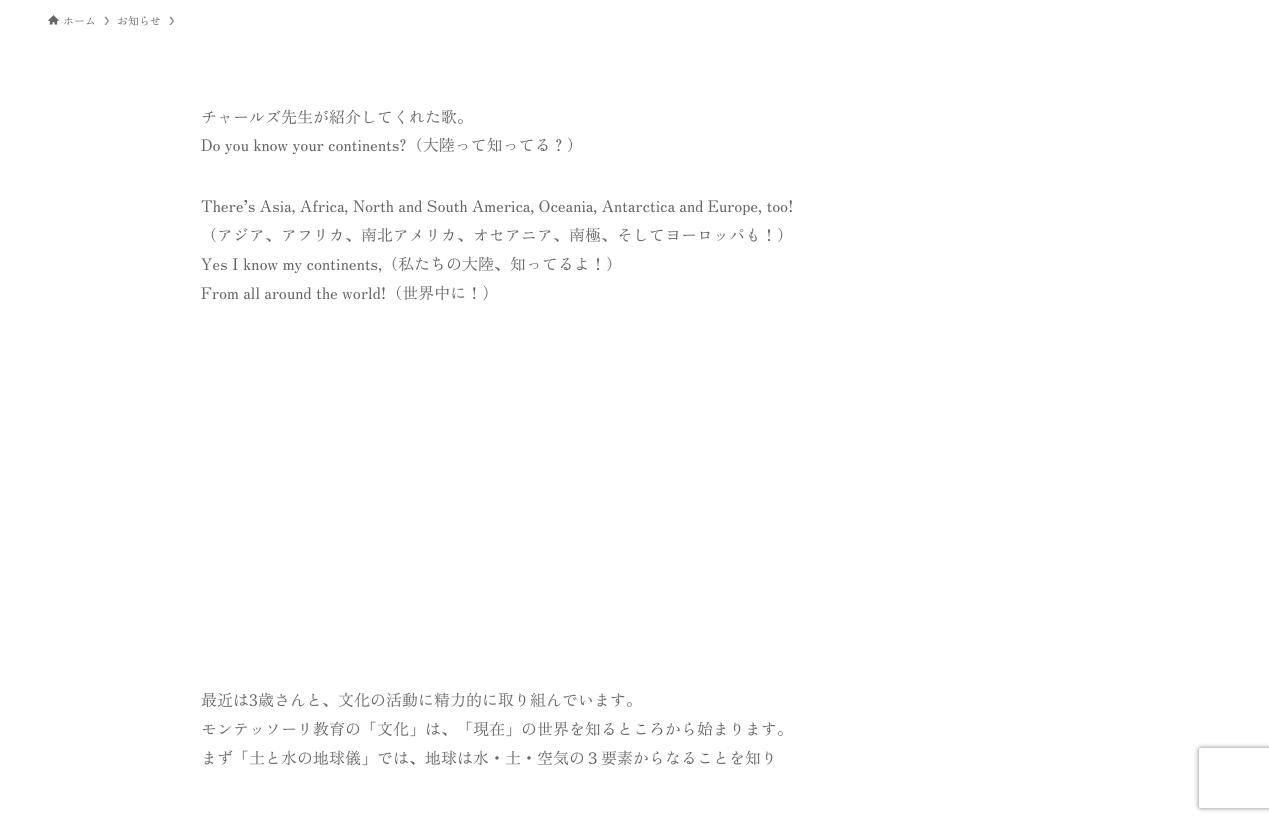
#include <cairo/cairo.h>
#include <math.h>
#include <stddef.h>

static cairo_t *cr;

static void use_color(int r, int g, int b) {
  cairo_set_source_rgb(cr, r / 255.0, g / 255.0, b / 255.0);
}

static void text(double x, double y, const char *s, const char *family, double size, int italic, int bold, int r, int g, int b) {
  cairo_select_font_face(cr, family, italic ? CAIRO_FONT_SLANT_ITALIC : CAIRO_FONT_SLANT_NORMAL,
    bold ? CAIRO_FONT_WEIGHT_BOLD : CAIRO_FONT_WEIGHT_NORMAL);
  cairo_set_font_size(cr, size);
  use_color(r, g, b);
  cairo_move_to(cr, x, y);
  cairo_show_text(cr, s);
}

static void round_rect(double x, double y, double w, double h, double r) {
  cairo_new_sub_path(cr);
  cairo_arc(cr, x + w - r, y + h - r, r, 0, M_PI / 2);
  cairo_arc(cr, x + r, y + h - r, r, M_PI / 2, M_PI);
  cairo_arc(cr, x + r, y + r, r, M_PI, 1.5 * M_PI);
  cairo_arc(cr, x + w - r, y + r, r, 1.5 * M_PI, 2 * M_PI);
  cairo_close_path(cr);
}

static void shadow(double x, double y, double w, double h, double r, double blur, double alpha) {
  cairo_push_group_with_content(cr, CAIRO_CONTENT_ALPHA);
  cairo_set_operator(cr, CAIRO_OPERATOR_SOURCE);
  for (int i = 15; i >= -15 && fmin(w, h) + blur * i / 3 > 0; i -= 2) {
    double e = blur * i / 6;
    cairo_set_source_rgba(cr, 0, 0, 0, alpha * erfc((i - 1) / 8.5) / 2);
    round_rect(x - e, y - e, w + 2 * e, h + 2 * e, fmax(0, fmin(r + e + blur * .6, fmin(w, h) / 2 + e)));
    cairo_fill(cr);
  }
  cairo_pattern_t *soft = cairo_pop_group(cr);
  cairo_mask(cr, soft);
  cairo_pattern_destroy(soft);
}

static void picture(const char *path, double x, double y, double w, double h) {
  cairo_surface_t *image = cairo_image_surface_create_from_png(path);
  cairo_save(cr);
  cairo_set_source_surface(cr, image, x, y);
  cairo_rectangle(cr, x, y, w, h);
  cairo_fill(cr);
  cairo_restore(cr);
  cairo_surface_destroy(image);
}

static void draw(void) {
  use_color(255, 255, 255);
  cairo_paint(cr);
  picture("img_01.png", 48, 15, 11, 10);
  use_color(133, 133, 133);
  cairo_new_path(cr);
  cairo_move_to(cr, 106, 16.5);
  cairo_line_to(cr, 104.5, 17);
  cairo_line_to(cr, 107.5, 21);
  cairo_line_to(cr, 104.5, 25);
  cairo_line_to(cr, 106, 25);
  cairo_line_to(cr, 109, 21);
  cairo_close_path(cr);
  cairo_fill(cr);
  cairo_new_path(cr);
  cairo_move_to(cr, 171, 16.5);
  cairo_line_to(cr, 169.5, 17);
  cairo_line_to(cr, 172.5, 21);
  cairo_line_to(cr, 169.5, 25);
  cairo_line_to(cr, 171, 25);
  cairo_line_to(cr, 174, 21);
  cairo_close_path(cr);
  cairo_fill(cr);
  cairo_save(cr);
  cairo_set_fill_rule(cr, CAIRO_FILL_RULE_EVEN_ODD);
  cairo_new_path(cr);
  cairo_move_to(cr, 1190, 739);
  cairo_line_to(cr, 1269, 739);
  cairo_line_to(cr, 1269, 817);
  cairo_line_to(cr, 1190, 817);
  cairo_close_path(cr);
  cairo_move_to(cr, 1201, 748);
  cairo_line_to(cr, 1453, 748);
  cairo_curve_to(cr, 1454, 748, 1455, 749, 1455, 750);
  cairo_line_to(cr, 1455, 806);
  cairo_curve_to(cr, 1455, 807, 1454, 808, 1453, 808);
  cairo_line_to(cr, 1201, 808);
  cairo_curve_to(cr, 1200, 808, 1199, 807, 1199, 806);
  cairo_line_to(cr, 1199, 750);
  cairo_curve_to(cr, 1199, 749, 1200, 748, 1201, 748);
  cairo_close_path(cr);
  cairo_clip(cr);
  use_color(128, 128, 128);
  shadow(1199, 748, 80, 60, 2, 2.5, 1);
  cairo_restore(cr);
  text(63, 25, "ホーム", "Zen Old Mincho", 11, 0, 0, 102, 102, 102);
  text(117, 25, "お知らせ", "Zen Old Mincho", 11, 0, 0, 102, 102, 102);
  text(201, 123, "チャールズ先生が紹介してくれた歌。", "Zen Old Mincho", 16, 0, 0, 102, 102, 102);
  text(201, 151, "Do you know your continents?（大陸って知ってる？）", "Zen Old Mincho", 16, 0, 0, 102, 102, 102);
  text(201, 212, "There’s Asia, Africa, North and South America, Oceania, Antarctica and Europe, too!", "Zen Old Mincho", 16, 0, 0, 102, 102, 102);
  text(201, 241, "（アジア、アフリカ、南北アメリカ、オセアニア、南極、そしてヨーロッパも！）", "Zen Old Mincho", 16, 0, 0, 102, 102, 102);
  text(201, 270, "Yes I know my continents,（私たちの大陸、知ってるよ！）", "Zen Old Mincho", 16, 0, 0, 102, 102, 102);
  text(201, 299, "From all around the world!（世界中に！）", "Zen Old Mincho", 16, 0, 0, 102, 102, 102);
  text(201, 706, "最近は3歳さんと、文化の活動に精力的に取り組んでいます。", "Zen Old Mincho", 16, 0, 0, 102, 102, 102);
  text(201, 735, "モンテッソーリ教育の「文化」は、「現在」の世界を知るところから始まります。", "Zen Old Mincho", 16, 0, 0, 102, 102, 102);
  text(201, 764, "まず「土と水の地球儀」では、地球は水・土・空気の３要素からなることを知り", "Zen Old Mincho", 16, 0, 0, 102, 102, 102);
}

int main(void) {
  cairo_surface_t *surface = cairo_image_surface_create(CAIRO_FORMAT_RGB24, 1269, 822);
  cr = cairo_create(surface);
  cairo_font_options_t *options = cairo_font_options_create();
  cairo_font_options_set_hint_metrics(options, CAIRO_HINT_METRICS_OFF);
  cairo_font_options_set_hint_style(options, CAIRO_HINT_STYLE_NONE);
  cairo_set_font_options(cr, options);
  cairo_set_miter_limit(cr, 4);
  draw();
  cairo_surface_write_to_png(surface, "out.png");
  cairo_font_options_destroy(options);
  cairo_destroy(cr);
  cairo_surface_destroy(surface);
  return 0;
}
